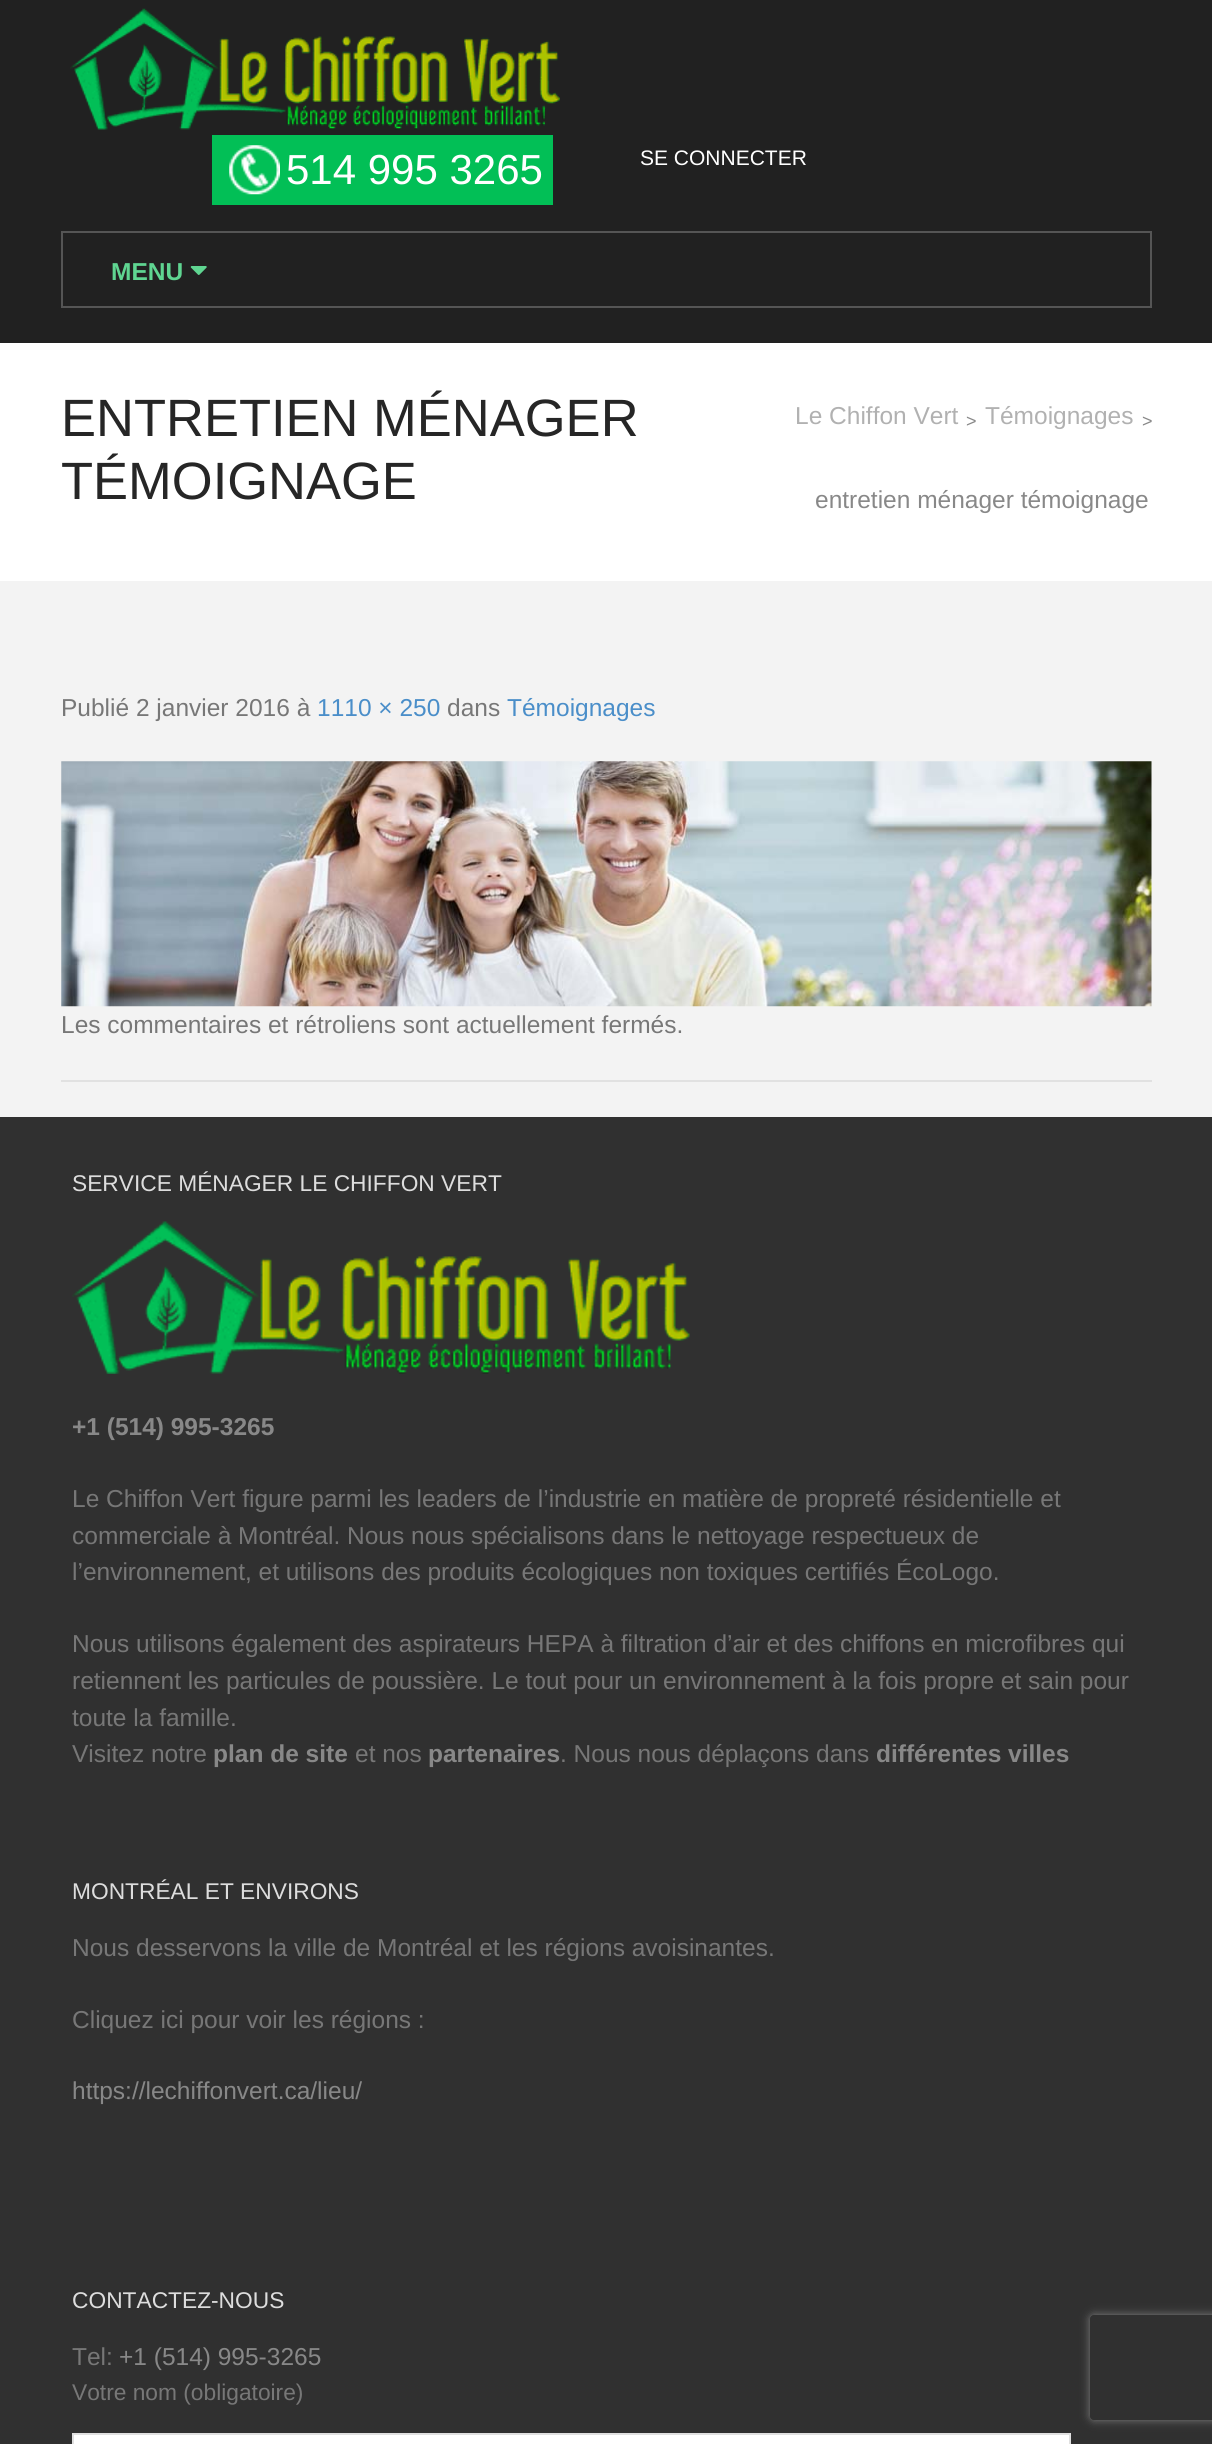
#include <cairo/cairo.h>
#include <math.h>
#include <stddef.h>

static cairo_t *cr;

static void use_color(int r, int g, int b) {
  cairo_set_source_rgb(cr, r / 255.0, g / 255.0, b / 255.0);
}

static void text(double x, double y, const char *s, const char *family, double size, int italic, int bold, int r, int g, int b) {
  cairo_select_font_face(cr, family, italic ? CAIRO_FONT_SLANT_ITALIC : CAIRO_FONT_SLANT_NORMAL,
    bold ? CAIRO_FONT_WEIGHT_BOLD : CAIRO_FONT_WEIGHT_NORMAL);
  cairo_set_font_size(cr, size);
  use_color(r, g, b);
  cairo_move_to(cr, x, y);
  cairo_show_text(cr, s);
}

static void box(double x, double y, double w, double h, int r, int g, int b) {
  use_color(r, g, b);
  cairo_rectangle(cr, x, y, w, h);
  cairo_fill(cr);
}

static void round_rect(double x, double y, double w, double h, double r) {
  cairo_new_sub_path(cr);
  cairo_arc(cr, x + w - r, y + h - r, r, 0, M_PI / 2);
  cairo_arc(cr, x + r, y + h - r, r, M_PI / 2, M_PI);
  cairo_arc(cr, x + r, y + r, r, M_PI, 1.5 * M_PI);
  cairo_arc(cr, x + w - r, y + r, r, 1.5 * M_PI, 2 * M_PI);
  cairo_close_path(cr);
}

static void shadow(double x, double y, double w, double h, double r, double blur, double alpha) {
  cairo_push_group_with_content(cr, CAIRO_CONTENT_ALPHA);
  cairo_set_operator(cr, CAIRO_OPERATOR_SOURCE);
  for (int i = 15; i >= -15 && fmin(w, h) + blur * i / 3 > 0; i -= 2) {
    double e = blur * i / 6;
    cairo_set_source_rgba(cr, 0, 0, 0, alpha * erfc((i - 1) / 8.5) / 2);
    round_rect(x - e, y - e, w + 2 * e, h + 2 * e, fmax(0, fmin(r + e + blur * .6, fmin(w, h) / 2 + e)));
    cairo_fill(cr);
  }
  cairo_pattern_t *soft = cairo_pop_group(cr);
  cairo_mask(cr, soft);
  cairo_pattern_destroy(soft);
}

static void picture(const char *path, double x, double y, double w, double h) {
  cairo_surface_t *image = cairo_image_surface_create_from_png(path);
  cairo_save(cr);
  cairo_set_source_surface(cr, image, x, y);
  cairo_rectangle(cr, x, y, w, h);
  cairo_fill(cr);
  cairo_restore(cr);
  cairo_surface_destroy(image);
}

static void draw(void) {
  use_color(243, 243, 243);
  cairo_paint(cr);
  box(0, 0, 1212, 343, 33, 33, 33);
  picture("img_01.png", 70, 8, 490, 122);
  box(212, 135, 341, 70, 2, 191, 86);
  picture("img_02.png", 229, 145, 51, 50);
  cairo_rectangle(cr, 62, 232, 1089, 75);
  use_color(85, 85, 85);
  cairo_stroke(cr);
  picture("img_03.png", 190, 266, 17, 9);
  box(0, 343, 1212, 238, 255, 255, 255);
  picture("img_04.png", 61, 761, 1091, 246);
  box(61, 1080, 1091, 2, 225, 225, 225);
  box(0, 1117, 1212, 1327, 48, 48, 48);
  picture("img_05.png", 72, 1221, 618, 153);
  use_color(255, 255, 255);
  cairo_rectangle(cr, 73, 2434, 997, 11);
  cairo_fill_preserve(cr);
  use_color(224, 224, 224);
  cairo_stroke(cr);
  cairo_save(cr);
  cairo_set_fill_rule(cr, CAIRO_FILL_RULE_EVEN_ODD);
  cairo_new_path(cr);
  cairo_move_to(cr, 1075, 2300);
  cairo_line_to(cr, 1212, 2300);
  cairo_line_to(cr, 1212, 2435);
  cairo_line_to(cr, 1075, 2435);
  cairo_close_path(cr);
  cairo_move_to(cr, 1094, 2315);
  cairo_line_to(cr, 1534, 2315);
  cairo_curve_to(cr, 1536, 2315, 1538, 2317, 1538, 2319);
  cairo_line_to(cr, 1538, 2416);
  cairo_curve_to(cr, 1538, 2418, 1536, 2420, 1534, 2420);
  cairo_line_to(cr, 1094, 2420);
  cairo_curve_to(cr, 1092, 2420, 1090, 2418, 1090, 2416);
  cairo_line_to(cr, 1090, 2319);
  cairo_curve_to(cr, 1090, 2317, 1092, 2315, 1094, 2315);
  cairo_close_path(cr);
  cairo_clip(cr);
  use_color(128, 128, 128);
  shadow(1090, 2315, 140, 105, 4, 4.5, 1);
  cairo_restore(cr);
  text(286, 184, "514 995 3265", "Liberation Sans", 42, 0, 0, 255, 255, 255);
  text(640, 165, "SE CONNECTER", "Liberation Sans", 21, 0, 0, 255, 255, 255);
  text(111, 280, "MENU", "Liberation Sans", 24.5, 0, 1, 95, 213, 145);
  text(61, 436, "ENTRETIEN MÉNAGER", "Liberation Sans", 52.5, 0, 0, 38, 38, 38);
  text(61, 499, "TÉMOIGNAGE", "Liberation Sans", 52.5, 0, 0, 38, 38, 38);
  text(795, 424, "Le Chiffon Vert", "Liberation Sans", 24.5, 0, 0, 177, 177, 177);
  text(966, 427, ">", "Liberation Sans", 18, 0, 0, 136, 136, 136);
  text(985, 424, "Témoignages", "Liberation Sans", 24.5, 0, 0, 177, 177, 177);
  text(1142, 427, ">", "Liberation Sans", 18, 0, 0, 136, 136, 136);
  text(815, 508, "entretien ménager témoignage", "Liberation Sans", 24.5, 0, 0, 136, 136, 136);
  text(61, 716, "Publié 2 janvier 2016 à", "Liberation Sans", 24.5, 0, 0, 119, 119, 119);
  text(317, 716, "1110 × 250", "Liberation Sans", 24.5, 0, 0, 74, 142, 201);
  text(447, 716, "dans", "Liberation Sans", 24.5, 0, 0, 119, 119, 119);
  text(507, 716, "Témoignages", "Liberation Sans", 24.5, 0, 0, 74, 142, 201);
  text(61, 1033, "Les commentaires et rétroliens sont actuellement fermés.", "Liberation Sans", 24.5, 0, 0, 119, 119, 119);
  text(72, 1191, "SERVICE MÉNAGER LE CHIFFON VERT", "Liberation Sans", 22.75, 0, 0, 221, 221, 221);
  text(72, 1435, "+1 (514) 995-3265", "Liberation Sans", 24.5, 0, 1, 136, 136, 136);
  text(72, 1507, "Le Chiffon Vert figure parmi les leaders de l’industrie en matière de propreté résidentielle et", "Liberation Sans", 24.5, 0, 0, 119, 119, 119);
  text(72, 1544, "commerciale à Montréal. Nous nous spécialisons dans le nettoyage respectueux de", "Liberation Sans", 24.5, 0, 0, 119, 119, 119);
  text(72, 1580, "l’environnement, et utilisons des produits écologiques non toxiques certifiés ÉcoLogo.", "Liberation Sans", 24.5, 0, 0, 119, 119, 119);
  text(72, 1652, "Nous utilisons également des aspirateurs HEPA à filtration d’air et des chiffons en microfibres qui", "Liberation Sans", 24.5, 0, 0, 119, 119, 119);
  text(72, 1689, "retiennent les particules de poussière. Le tout pour un environnement à la fois propre et sain pour", "Liberation Sans", 24.5, 0, 0, 119, 119, 119);
  text(72, 1726, "toute la famille.", "Liberation Sans", 24.5, 0, 0, 119, 119, 119);
  text(72, 1762, "Visitez notre", "Liberation Sans", 24.5, 0, 0, 119, 119, 119);
  text(213, 1762, "plan de site", "Liberation Sans", 24.5, 0, 1, 136, 136, 136);
  text(355, 1762, "et nos", "Liberation Sans", 24.5, 0, 0, 119, 119, 119);
  text(428, 1762, "partenaires", "Liberation Sans", 24.5, 0, 1, 136, 136, 136);
  text(560, 1762, ". Nous nous déplaçons dans", "Liberation Sans", 24.5, 0, 0, 119, 119, 119);
  text(876, 1762, "différentes villes", "Liberation Sans", 24.5, 0, 1, 136, 136, 136);
  text(72, 1899, "MONTRÉAL ET ENVIRONS", "Liberation Sans", 22.75, 0, 0, 221, 221, 221);
  text(72, 1956, "Nous desservons la ville de Montréal et les régions avoisinantes.", "Liberation Sans", 24.5, 0, 0, 119, 119, 119);
  text(72, 2028, "Cliquez ici pour voir les régions :", "Liberation Sans", 24.5, 0, 0, 119, 119, 119);
  text(72, 2099, "https://lechiffonvert.ca/lieu/", "Liberation Sans", 24.5, 0, 0, 136, 136, 136);
  text(72, 2308, "CONTACTEZ-NOUS", "Liberation Sans", 22.75, 0, 0, 221, 221, 221);
  text(72, 2365, "Tel:", "Liberation Sans", 24.5, 0, 0, 119, 119, 119);
  text(119, 2365, "+1 (514) 995-3265", "Liberation Sans", 24.5, 0, 0, 136, 136, 136);
  text(72, 2400, "Votre nom (obligatoire)", "Liberation Sans", 22.75, 0, 0, 119, 119, 119);
}

int main(void) {
  cairo_surface_t *surface = cairo_image_surface_create(CAIRO_FORMAT_RGB24, 1212, 2444);
  cr = cairo_create(surface);
  cairo_font_options_t *options = cairo_font_options_create();
  cairo_font_options_set_hint_metrics(options, CAIRO_HINT_METRICS_OFF);
  cairo_font_options_set_hint_style(options, CAIRO_HINT_STYLE_NONE);
  cairo_set_font_options(cr, options);
  cairo_set_miter_limit(cr, 4);
  draw();
  cairo_surface_write_to_png(surface, "out.png");
  cairo_font_options_destroy(options);
  cairo_destroy(cr);
  cairo_surface_destroy(surface);
  return 0;
}
